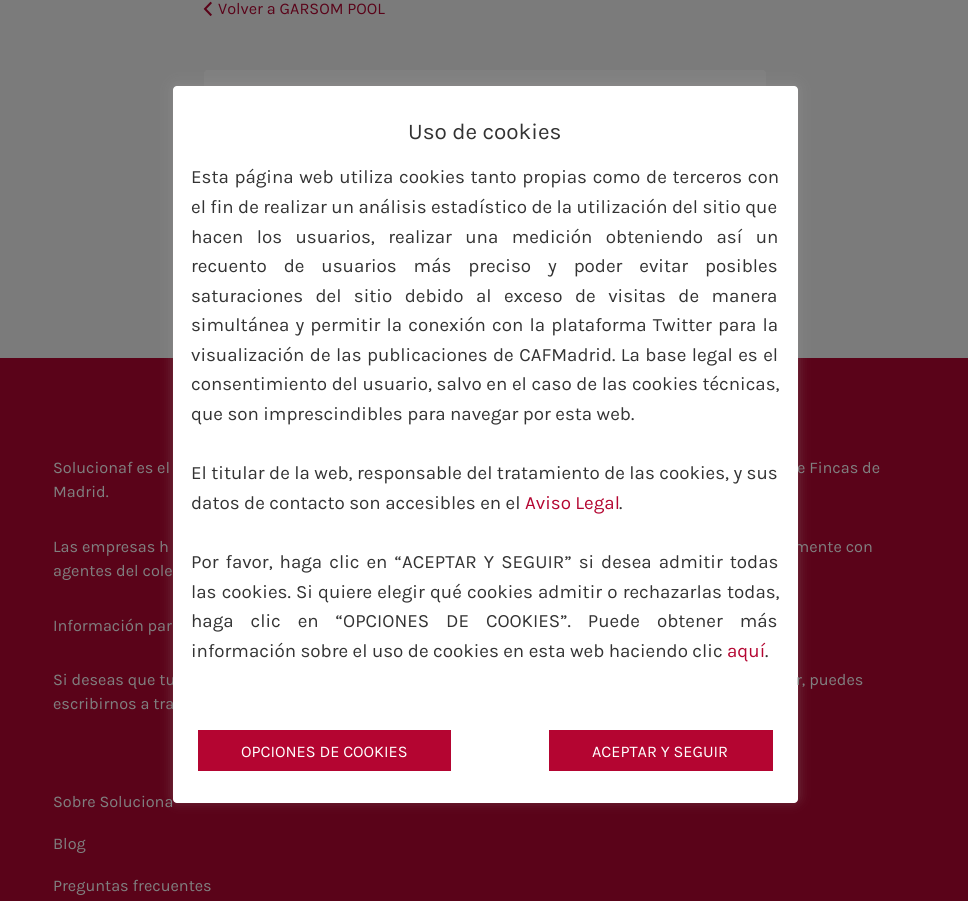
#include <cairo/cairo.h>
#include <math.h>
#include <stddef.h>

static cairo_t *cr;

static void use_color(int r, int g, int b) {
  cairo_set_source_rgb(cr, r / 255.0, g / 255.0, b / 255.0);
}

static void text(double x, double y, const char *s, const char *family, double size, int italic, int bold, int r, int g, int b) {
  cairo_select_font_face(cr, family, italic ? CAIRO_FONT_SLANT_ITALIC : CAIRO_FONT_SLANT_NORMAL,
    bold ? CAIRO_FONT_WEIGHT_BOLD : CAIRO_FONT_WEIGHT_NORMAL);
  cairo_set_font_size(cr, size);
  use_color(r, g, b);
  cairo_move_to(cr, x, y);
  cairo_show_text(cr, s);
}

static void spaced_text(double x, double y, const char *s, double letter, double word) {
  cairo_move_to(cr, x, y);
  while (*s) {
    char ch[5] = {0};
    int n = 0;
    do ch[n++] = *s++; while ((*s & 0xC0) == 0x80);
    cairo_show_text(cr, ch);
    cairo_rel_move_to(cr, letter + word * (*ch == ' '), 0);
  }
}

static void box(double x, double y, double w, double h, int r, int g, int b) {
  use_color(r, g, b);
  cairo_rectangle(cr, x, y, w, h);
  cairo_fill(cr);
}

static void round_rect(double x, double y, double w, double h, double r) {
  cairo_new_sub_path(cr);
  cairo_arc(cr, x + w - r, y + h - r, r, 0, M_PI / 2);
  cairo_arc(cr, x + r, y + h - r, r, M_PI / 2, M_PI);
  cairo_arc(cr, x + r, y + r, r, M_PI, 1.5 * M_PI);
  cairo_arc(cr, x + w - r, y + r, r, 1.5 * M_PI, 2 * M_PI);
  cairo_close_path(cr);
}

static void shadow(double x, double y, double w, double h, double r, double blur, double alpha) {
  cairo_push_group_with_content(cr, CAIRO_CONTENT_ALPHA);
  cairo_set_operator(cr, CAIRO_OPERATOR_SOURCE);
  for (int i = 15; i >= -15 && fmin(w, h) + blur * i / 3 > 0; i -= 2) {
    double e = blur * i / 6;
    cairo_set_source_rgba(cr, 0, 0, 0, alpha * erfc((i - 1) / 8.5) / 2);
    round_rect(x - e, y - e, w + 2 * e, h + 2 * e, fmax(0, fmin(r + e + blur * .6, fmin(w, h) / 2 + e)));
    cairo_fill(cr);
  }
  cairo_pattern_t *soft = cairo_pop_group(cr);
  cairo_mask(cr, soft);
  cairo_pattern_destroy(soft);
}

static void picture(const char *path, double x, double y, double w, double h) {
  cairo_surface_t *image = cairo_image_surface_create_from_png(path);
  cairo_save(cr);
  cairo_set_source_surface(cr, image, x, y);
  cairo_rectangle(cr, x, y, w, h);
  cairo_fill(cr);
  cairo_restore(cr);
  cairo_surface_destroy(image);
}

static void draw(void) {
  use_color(123, 123, 123);
  cairo_paint(cr);
  picture("img_01.png", 203, 1, 9, 15);
  picture("img_02.png", 204, 70, 562, 16);
  box(0, 358, 968, 543, 90, 3, 25);
  use_color(172, 171, 171);
  shadow(173, 85, 625, 716, 4, 6, 0.3);
  text(218, 14, "Volver a GARSOM POOL", "Karla", 16.25, 0, 0, 90, 3, 25);
  text(53, 473, "Solucionaf es el", "Karla", 16.25, 0, 0, 128, 128, 128);
  text(797, 473, "e Fincas de", "Karla", 16.25, 0, 0, 128, 128, 128);
  text(53, 497, "Madrid.", "Karla", 16.25, 0, 0, 128, 128, 128);
  text(53, 552, "Las empresas h", "Karla", 16.25, 0, 0, 128, 128, 128);
  text(794, 552, "mente con", "Karla", 16.25, 0, 0, 128, 128, 128);
  text(53, 576, "agentes del cole", "Karla", 16.25, 0, 0, 128, 128, 128);
  text(53, 631, "Información par", "Karla", 16.25, 0, 0, 128, 128, 128);
  text(53, 685, "Si deseas que tu", "Karla", 16.25, 0, 0, 128, 128, 128);
  use_color(255, 255, 255);
  round_rect(173, 86, 625, 717, 4);
  cairo_fill(cr);
  box(549, 730, 224, 41, 180, 5, 49);
  text(592, 757, "ACEPTAR Y SEGUIR", "Karla", 16.25, 0, 0, 255, 255, 255);
  box(198, 730, 253, 41, 180, 5, 49);
  text(241, 757, "OPCIONES DE COOKIES", "Karla", 16.25, 0, 0, 255, 255, 255);
  text(765, 657, ".", "Karla", 18.75, 0, 0, 51, 51, 51);
  text(727, 657, "aquí", "Karla", 18.75, 0, 0, 180, 5, 49);
  text(191, 657, "información sobre el uso de cookies en esta web haciendo clic", "Karla", 18.75, 0, 0, 51, 51, 51);
  spaced_text(191, 627, "haga clic en “OPCIONES DE COOKIES”. Puede obtener más", 0, 12.5);
  spaced_text(191, 598, "las cookies. Si quiere elegir qué cookies admitir o rechazarlas todas,", 0, 0.75);
  spaced_text(191, 568, "Por favor, haga clic en “ACEPTAR Y SEGUIR” si desea admitir todas", 0, 2.6);
  text(619, 509, ".", "Karla", 18.75, 0, 0, 51, 51, 51);
  text(525, 509, "Aviso Legal", "Karla", 18.75, 0, 0, 180, 5, 49);
  text(191, 509, "datos de contacto son accesibles en el", "Karla", 18.75, 0, 0, 51, 51, 51);
  text(191, 479, "El titular de la web, responsable del tratamiento de las cookies, y sus", "Karla", 18.75, 0, 0, 51, 51, 51);
  text(191, 420, "que son imprescindibles para navegar por esta web.", "Karla", 18.75, 0, 0, 51, 51, 51);
  spaced_text(191, 390, "consentimiento del usuario, salvo en el caso de las cookies técnicas,", 0, 0.25);
  spaced_text(191, 361, "visualización de las publicaciones de CAFMadrid. La base legal es el", 0, 1);
  spaced_text(191, 331, "simultánea y permitir la conexión con la plataforma Twitter para la", 0, 1.75);
  spaced_text(191, 302, "saturaciones del sitio debido al exceso de visitas de manera", 0, 8);
  spaced_text(191, 272, "recuento de usuarios más preciso y poder evitar posibles", 0, 12.5);
  spaced_text(191, 243, "hacen los usuarios, realizar una medición obteniendo así un", 0, 9);
  text(191, 213, "el fin de realizar un análisis estadístico de la utilización del sitio que", "Karla", 18.75, 0, 0, 51, 51, 51);
  spaced_text(191, 183, "Esta página web utiliza cookies tanto propias como de terceros con", 0, 1.25);
  text(408, 139, "Uso de cookies", "Karla", 22.5, 0, 0, 51, 51, 51);
  text(796, 685, "r, puedes", "Karla", 16.25, 0, 0, 128, 128, 128);
  text(53, 709, "escribirnos a tra", "Karla", 16.25, 0, 0, 128, 128, 128);
  text(53, 807, "Sobre Soluciona", "Karla", 16.25, 0, 0, 128, 128, 128);
  text(53, 849, "Blog", "Karla", 16.25, 0, 0, 128, 128, 128);
  text(53, 891, "Preguntas frecuentes", "Karla", 16.25, 0, 0, 128, 128, 128);
}

int main(void) {
  cairo_surface_t *surface = cairo_image_surface_create(CAIRO_FORMAT_RGB24, 968, 901);
  cr = cairo_create(surface);
  cairo_font_options_t *options = cairo_font_options_create();
  cairo_font_options_set_hint_metrics(options, CAIRO_HINT_METRICS_OFF);
  cairo_font_options_set_hint_style(options, CAIRO_HINT_STYLE_NONE);
  cairo_set_font_options(cr, options);
  cairo_set_miter_limit(cr, 4);
  draw();
  cairo_surface_write_to_png(surface, "out.png");
  cairo_font_options_destroy(options);
  cairo_destroy(cr);
  cairo_surface_destroy(surface);
  return 0;
}
